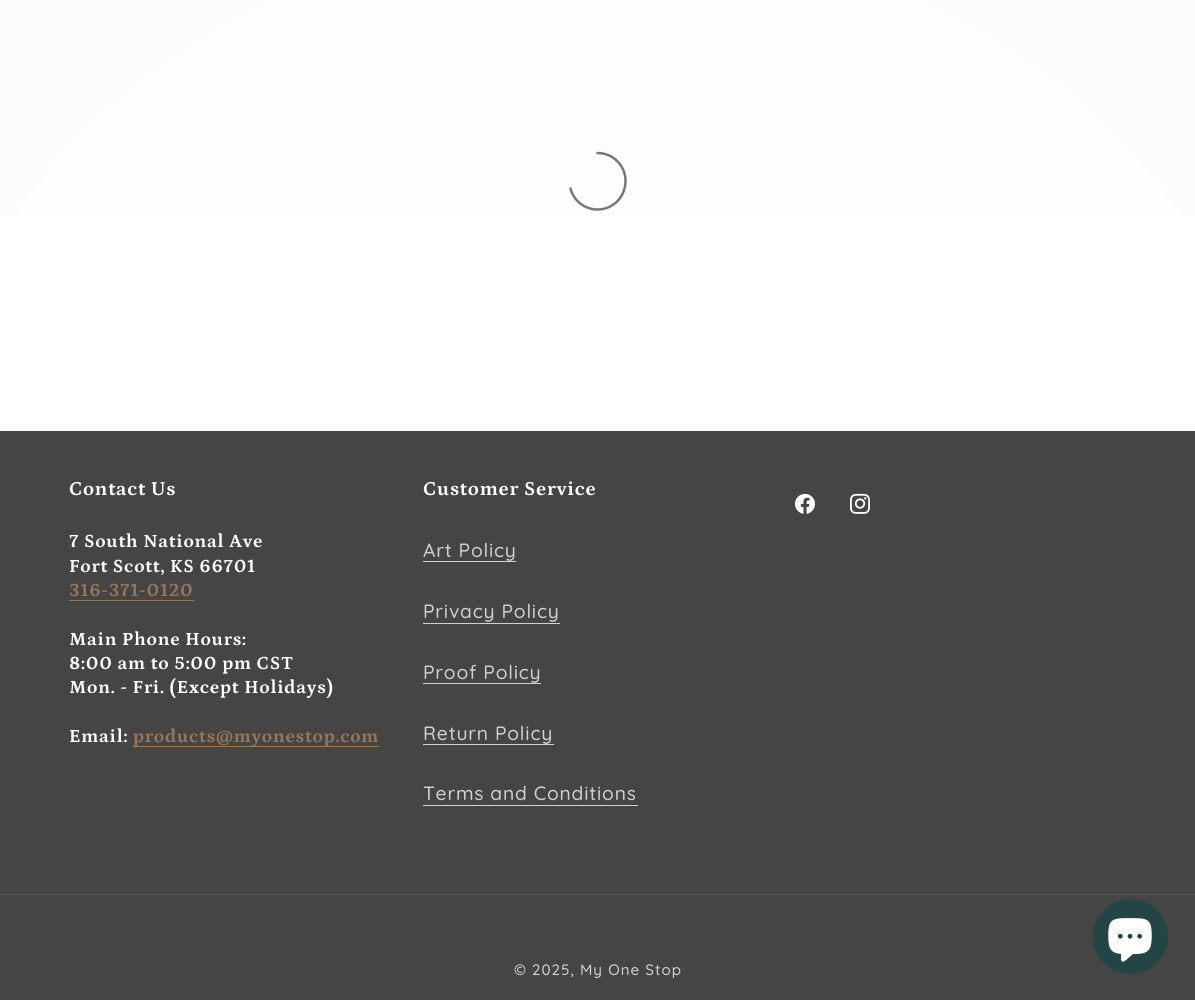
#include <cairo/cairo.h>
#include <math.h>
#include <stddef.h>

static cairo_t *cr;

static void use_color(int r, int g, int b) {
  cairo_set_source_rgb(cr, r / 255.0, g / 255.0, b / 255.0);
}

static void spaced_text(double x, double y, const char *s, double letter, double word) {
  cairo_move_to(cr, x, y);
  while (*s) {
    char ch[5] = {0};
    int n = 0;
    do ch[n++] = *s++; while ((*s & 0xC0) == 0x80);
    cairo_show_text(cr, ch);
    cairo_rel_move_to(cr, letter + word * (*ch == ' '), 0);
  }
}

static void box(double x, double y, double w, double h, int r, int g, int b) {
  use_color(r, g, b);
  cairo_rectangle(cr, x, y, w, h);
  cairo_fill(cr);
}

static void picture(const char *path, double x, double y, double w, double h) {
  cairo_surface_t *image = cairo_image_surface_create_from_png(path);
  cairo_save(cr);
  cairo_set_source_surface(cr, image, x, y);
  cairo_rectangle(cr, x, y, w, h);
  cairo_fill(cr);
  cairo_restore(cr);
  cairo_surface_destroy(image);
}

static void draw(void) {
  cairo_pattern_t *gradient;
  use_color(255, 255, 255);
  cairo_paint(cr);
  gradient = cairo_pattern_create_radial(0, 0, 0, 0, 0, 1);
  cairo_pattern_set_matrix(gradient, &(cairo_matrix_t){1.0 / 845, 0, 0, 1.0 / 707, -1.0 * 598 / 845, -1.0 * 500 / 707});
  cairo_pattern_add_color_stop_rgba(gradient, 0, 1, 1, 1, 1);
  cairo_pattern_add_color_stop_rgba(gradient, 0.98, 0.988, 0.988, 0.988, 1);
  cairo_set_source(cr, gradient);
  cairo_pattern_destroy(gradient);
  cairo_rectangle(cr, 0, 0, 1195, 216);
  cairo_fill(cr);
  cairo_new_path(cr);
  cairo_move_to(cr, 597.5, 153);
  cairo_curve_to(cr, 613, 153, 625.5, 165.5, 625.5, 181);
  cairo_curve_to(cr, 625.5, 197, 613, 209.5, 597.5, 209.5);
  cairo_curve_to(cr, 584.5, 209.5, 573.5, 200.5, 570.5, 188.5);
  use_color(119, 119, 119);
  cairo_set_line_width(cr, 2.5);
  cairo_set_line_cap(cr, CAIRO_LINE_CAP_ROUND);
  cairo_stroke(cr);
  box(0, 431, 1195, 569, 69, 69, 69);
  box(69, 600, 125, 1, 152, 119, 88);
  box(133, 746, 246, 1, 152, 119, 88);
  box(423, 561, 93, 1, 209, 209, 209);
  box(423, 623, 137, 1, 209, 209, 209);
  box(423, 683, 118, 1, 209, 209, 209);
  box(423, 744, 131, 1, 209, 209, 209);
  box(423, 805, 215, 1, 209, 209, 209);
  picture("img_01.png", 795, 493, 20, 21);
  picture("img_02.png", 850, 493, 20, 21);
  box(0, 894, 1195, 1, 84, 84, 84);
  use_color(36, 69, 69);
  cairo_arc(cr, 1130.5, 936.5, 37.5, 0, 2 * M_PI);
  cairo_fill(cr);
  picture("img_03.png", 1108, 918, 44, 44);
  cairo_select_font_face(cr, "Petrona", CAIRO_FONT_SLANT_NORMAL, CAIRO_FONT_WEIGHT_BOLD);
  cairo_set_font_size(cr, 20);
  use_color(255, 255, 255);
  spaced_text(69, 495, "Contact Us", 0.75, 0);
  cairo_set_font_size(cr, 18.75);
  spaced_text(69, 547, "7 South National Ave", 0.75, 0);
  spaced_text(69, 572, "Fort Scott, KS 66701", 0.75, 0);
  use_color(152, 119, 88);
  spaced_text(69, 596, "316-371-0120", 0.75, 0);
  use_color(255, 255, 255);
  spaced_text(69, 645, "Main Phone Hours:", 0.75, 0);
  spaced_text(69, 669, "8:00 am to 5:00 pm CST", 0.75, 0);
  spaced_text(69, 693, "Mon. - Fri. (Except Holidays)", 0.75, 0);
  spaced_text(69, 742, "Email:", 0.75, 0);
  use_color(152, 119, 88);
  spaced_text(133, 742, "products@myonestop.com", 0.75, 0);
  cairo_set_font_size(cr, 20);
  use_color(255, 255, 255);
  spaced_text(423, 495, "Customer Service", 0.75, 0);
  cairo_select_font_face(cr, "Quicksand Medium", CAIRO_FONT_SLANT_NORMAL, CAIRO_FONT_WEIGHT_NORMAL);
  cairo_set_font_size(cr, 19.25);
  use_color(209, 209, 209);
  spaced_text(423, 557, "Art Policy", 0.8, 0);
  spaced_text(423, 618, "Privacy Policy", 0.8, 0);
  spaced_text(423, 679, "Proof Policy", 0.8, 0);
  spaced_text(423, 740, "Return Policy", 0.8, 0);
  spaced_text(423, 800, "Terms and Conditions", 0.8, 0);
  cairo_set_font_size(cr, 15.1);
  spaced_text(514, 975, "© 2025, My One Stop", 1, 0);
}

int main(void) {
  cairo_surface_t *surface = cairo_image_surface_create(CAIRO_FORMAT_RGB24, 1195, 1000);
  cr = cairo_create(surface);
  cairo_font_options_t *options = cairo_font_options_create();
  cairo_font_options_set_hint_metrics(options, CAIRO_HINT_METRICS_OFF);
  cairo_font_options_set_hint_style(options, CAIRO_HINT_STYLE_NONE);
  cairo_set_font_options(cr, options);
  cairo_set_miter_limit(cr, 4);
  draw();
  cairo_surface_write_to_png(surface, "out.png");
  cairo_font_options_destroy(options);
  cairo_destroy(cr);
  cairo_surface_destroy(surface);
  return 0;
}
